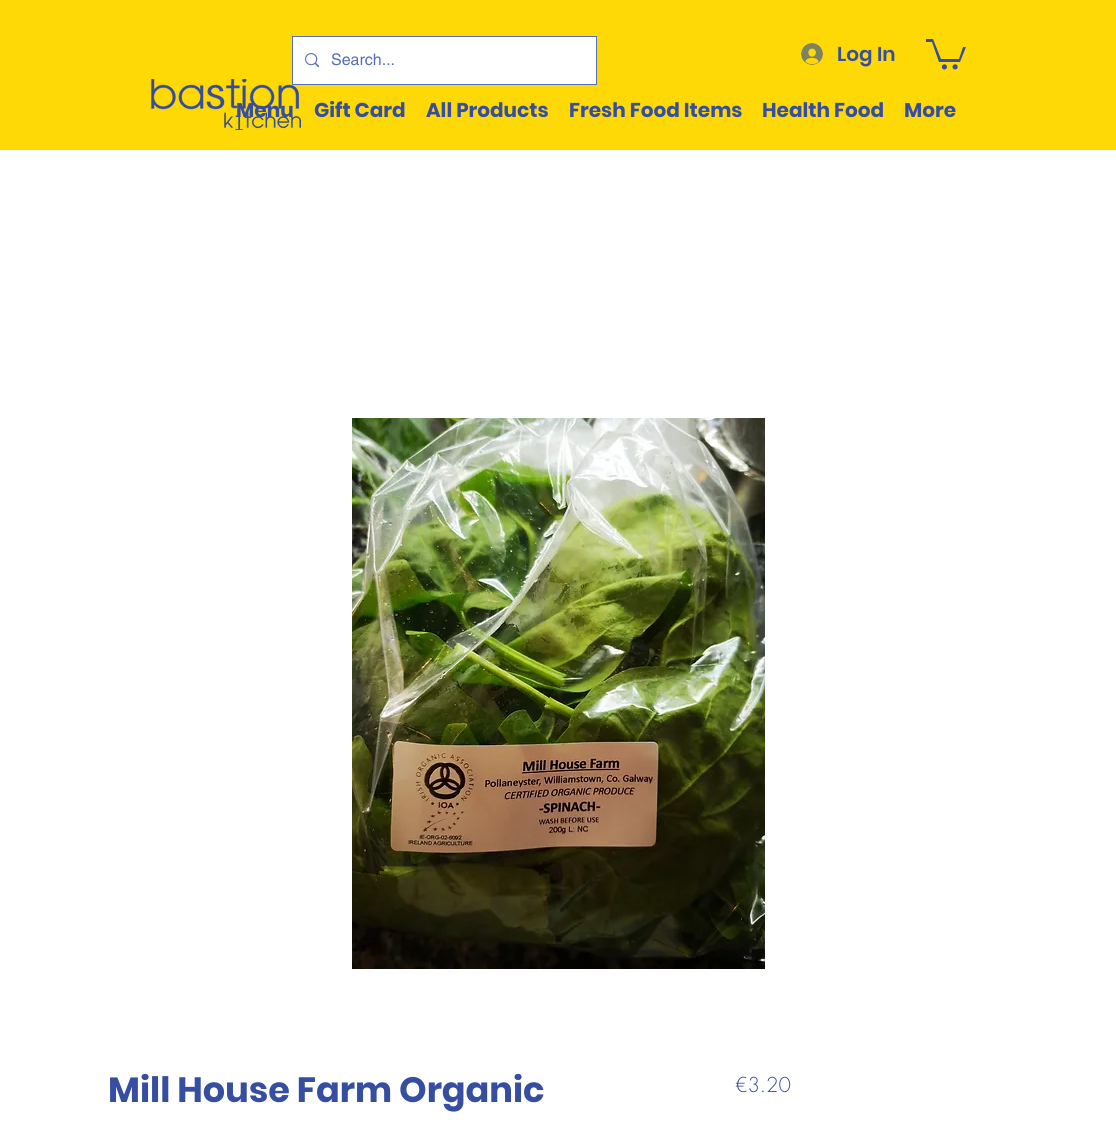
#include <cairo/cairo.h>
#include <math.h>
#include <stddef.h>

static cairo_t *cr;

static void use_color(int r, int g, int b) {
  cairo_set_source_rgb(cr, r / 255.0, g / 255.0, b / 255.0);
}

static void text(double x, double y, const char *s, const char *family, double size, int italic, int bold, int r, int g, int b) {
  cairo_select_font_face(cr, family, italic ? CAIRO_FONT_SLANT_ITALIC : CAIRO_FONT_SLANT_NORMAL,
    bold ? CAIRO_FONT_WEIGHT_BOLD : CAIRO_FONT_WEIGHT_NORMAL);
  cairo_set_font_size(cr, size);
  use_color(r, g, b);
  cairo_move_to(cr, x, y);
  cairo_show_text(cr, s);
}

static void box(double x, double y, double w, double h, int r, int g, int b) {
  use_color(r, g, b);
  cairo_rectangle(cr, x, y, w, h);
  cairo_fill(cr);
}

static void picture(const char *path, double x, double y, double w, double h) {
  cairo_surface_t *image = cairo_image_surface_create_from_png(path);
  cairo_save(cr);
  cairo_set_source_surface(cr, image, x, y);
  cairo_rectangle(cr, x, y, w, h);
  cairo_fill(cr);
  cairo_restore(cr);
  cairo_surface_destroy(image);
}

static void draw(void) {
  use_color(255, 255, 255);
  cairo_paint(cr);
  box(0, 0, 1116, 150, 255, 217, 6);
  picture("img_01.png", 150, 79, 151, 51);
  cairo_rectangle(cr, 292.5, 36.5, 304, 48);
  use_color(86, 111, 184);
  cairo_set_line_width(cr, 1);
  cairo_stroke(cr);
  box(293, 37, 303, 47, 255, 255, 255);
  picture("img_02.png", 305, 53, 14, 15);
  picture("img_03.png", 801, 43, 22, 22);
  use_color(53, 78, 161);
  cairo_new_path(cr);
  cairo_move_to(cr, 966, 47);
  cairo_line_to(cr, 960, 62);
  cairo_line_to(cr, 939, 62);
  cairo_line_to(cr, 932, 42);
  cairo_line_to(cr, 926, 42);
  cairo_line_to(cr, 926, 39);
  cairo_line_to(cr, 933, 39);
  cairo_line_to(cr, 941, 59);
  cairo_line_to(cr, 959, 59);
  cairo_line_to(cr, 963, 47);
  cairo_fill(cr);
  cairo_arc(cr, 955.1, 66.9, 2.6, 0, 2 * M_PI);
  cairo_fill(cr);
  cairo_arc(cr, 944.4, 66.9, 2.6, 0, 2 * M_PI);
  cairo_fill(cr);
  picture("img_04.png", 352, 418, 413, 551);
  text(331, 65, "Search...", "helvetica", 16, 0, 0, 86, 111, 184);
  text(837, 61, "Log In", "Poppins SemiBold", 20, 0, 0, 53, 78, 161);
  text(236, 117, "Menu", "Poppins", 20, 0, 1, 53, 78, 161);
  text(314, 117, "Gift Card", "Poppins", 20, 0, 1, 53, 78, 161);
  text(426, 117, "All Products", "Poppins", 20, 0, 1, 53, 78, 161);
  text(569, 117, "Fresh Food Items", "Poppins", 20, 0, 1, 53, 78, 161);
  text(762, 117, "Health Food", "Poppins", 20, 0, 1, 53, 78, 161);
  text(904, 117, "More", "Poppins", 20, 0, 1, 53, 78, 161);
  text(108, 1102, "Mill House Farm Organic", "Poppins", 35, 0, 1, 53, 78, 161);
  text(735, 1092, "€3.20", "futura Light", 20, 0, 0, 53, 78, 161);
}

int main(void) {
  cairo_surface_t *surface = cairo_image_surface_create(CAIRO_FORMAT_RGB24, 1116, 1127);
  cr = cairo_create(surface);
  cairo_font_options_t *options = cairo_font_options_create();
  cairo_font_options_set_hint_metrics(options, CAIRO_HINT_METRICS_OFF);
  cairo_font_options_set_hint_style(options, CAIRO_HINT_STYLE_NONE);
  cairo_set_font_options(cr, options);
  cairo_set_miter_limit(cr, 4);
  draw();
  cairo_surface_write_to_png(surface, "out.png");
  cairo_font_options_destroy(options);
  cairo_destroy(cr);
  cairo_surface_destroy(surface);
  return 0;
}
